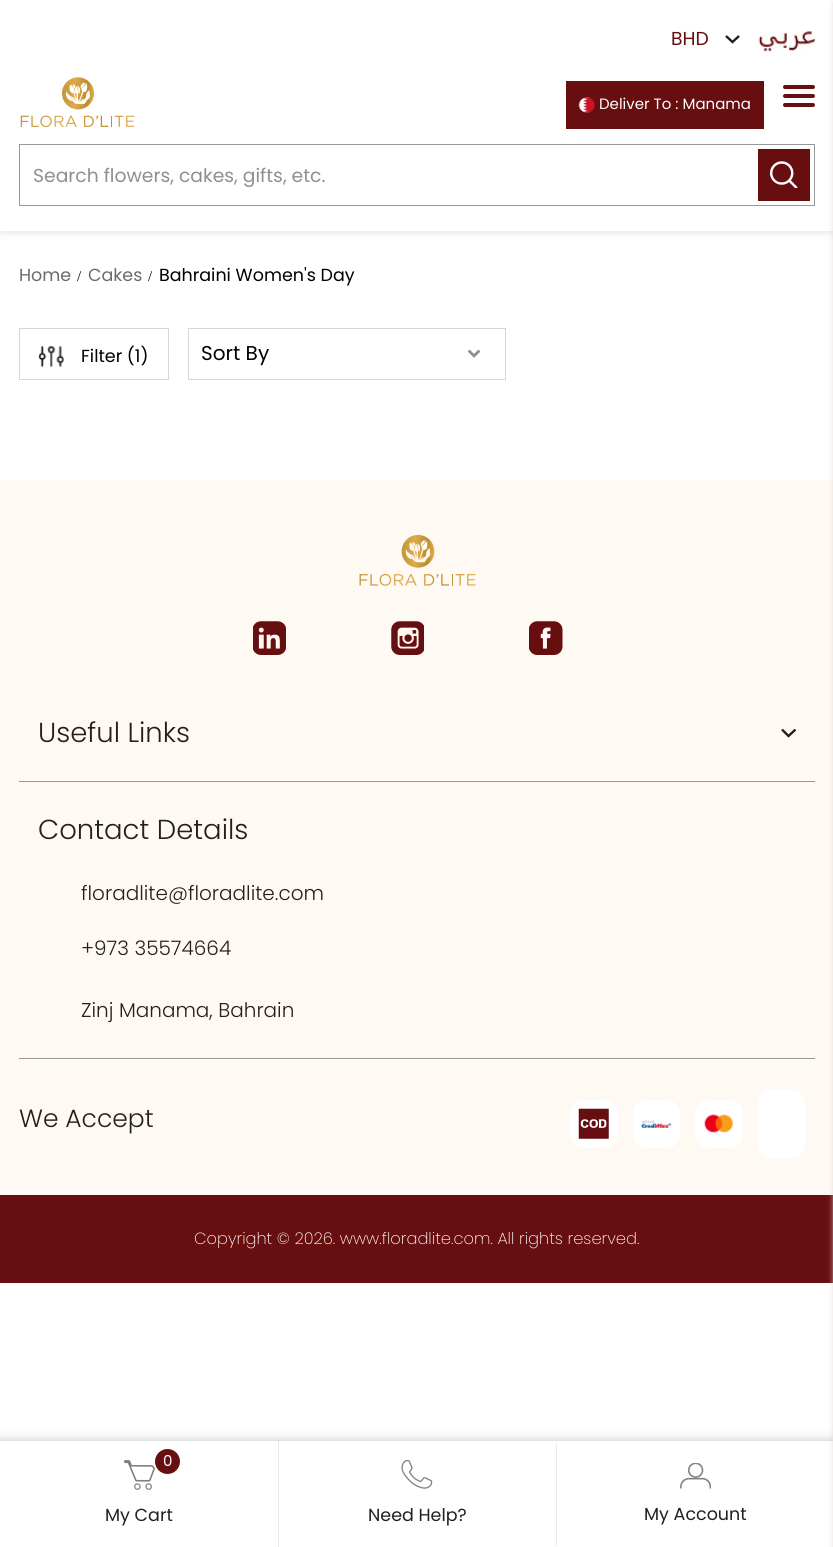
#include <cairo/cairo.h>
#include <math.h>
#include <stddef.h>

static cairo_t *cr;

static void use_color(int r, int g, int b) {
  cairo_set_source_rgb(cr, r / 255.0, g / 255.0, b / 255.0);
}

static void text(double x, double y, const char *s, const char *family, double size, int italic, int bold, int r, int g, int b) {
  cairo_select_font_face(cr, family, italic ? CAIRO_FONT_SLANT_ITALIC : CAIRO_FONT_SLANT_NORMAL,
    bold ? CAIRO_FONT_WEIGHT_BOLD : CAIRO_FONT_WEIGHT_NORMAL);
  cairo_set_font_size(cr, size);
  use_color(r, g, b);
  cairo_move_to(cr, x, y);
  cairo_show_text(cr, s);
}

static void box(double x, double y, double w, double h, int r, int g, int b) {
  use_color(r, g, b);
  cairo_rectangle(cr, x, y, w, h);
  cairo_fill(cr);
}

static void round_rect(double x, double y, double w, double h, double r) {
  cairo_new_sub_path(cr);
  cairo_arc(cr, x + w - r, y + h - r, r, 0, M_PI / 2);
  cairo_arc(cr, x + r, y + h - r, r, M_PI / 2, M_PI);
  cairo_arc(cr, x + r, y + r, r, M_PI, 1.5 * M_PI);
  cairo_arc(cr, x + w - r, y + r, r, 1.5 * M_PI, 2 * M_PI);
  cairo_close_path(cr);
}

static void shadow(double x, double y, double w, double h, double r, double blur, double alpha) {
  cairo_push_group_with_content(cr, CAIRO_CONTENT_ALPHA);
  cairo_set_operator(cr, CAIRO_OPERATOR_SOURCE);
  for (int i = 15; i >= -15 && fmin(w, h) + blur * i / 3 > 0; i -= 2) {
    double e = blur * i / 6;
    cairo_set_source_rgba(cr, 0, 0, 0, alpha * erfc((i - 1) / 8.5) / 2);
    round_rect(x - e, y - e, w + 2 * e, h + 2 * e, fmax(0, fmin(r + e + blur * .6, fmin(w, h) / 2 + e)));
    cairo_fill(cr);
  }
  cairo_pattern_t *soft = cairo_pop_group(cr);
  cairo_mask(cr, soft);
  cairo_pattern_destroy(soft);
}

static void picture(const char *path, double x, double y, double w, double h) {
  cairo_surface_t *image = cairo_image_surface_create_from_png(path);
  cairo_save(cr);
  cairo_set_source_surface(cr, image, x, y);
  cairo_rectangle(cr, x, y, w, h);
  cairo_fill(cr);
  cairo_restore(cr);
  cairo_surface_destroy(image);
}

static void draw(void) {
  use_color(255, 255, 255);
  cairo_paint(cr);
  cairo_save(cr);
  cairo_rectangle(cr, 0, 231, 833, 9);
  cairo_clip(cr);
  use_color(235, 235, 235);
  shadow(0, -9, 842, 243, 0, 3, 1);
  cairo_restore(cr);
  cairo_new_path(cr);
  cairo_move_to(cr, 726, 36);
  cairo_line_to(cr, 732.5, 42);
  cairo_line_to(cr, 739, 36);
  use_color(35, 31, 32);
  cairo_set_line_width(cr, 2.4);
  cairo_stroke(cr);
  picture("img_01.png", 758, 31, 57, 21);
  picture("img_02.png", 20, 77, 115, 51);
  box(566, 81, 198, 48, 103, 14, 16);
  picture("img_03.png", 578, 97, 17, 16);
  round_rect(783, 85, 32, 4, 2);
  cairo_fill(cr);
  round_rect(783, 94, 32, 4, 2);
  cairo_fill(cr);
  round_rect(783, 103, 32, 4, 2);
  cairo_fill(cr);
  cairo_rectangle(cr, 19.5, 144.5, 795, 61);
  use_color(153, 153, 153);
  cairo_set_line_width(cr, 1);
  cairo_stroke(cr);
  box(758, 149, 52, 52, 103, 14, 16);
  picture("img_04.png", 770, 161, 28, 27);
  box(0, 480, 833, 715, 255, 249, 243);
  box(0, 1195, 833, 88, 103, 14, 16);
  use_color(0, 0, 0);
  shadow(0, 1448, 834, 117, 0, 6, 0.2);
  shadow(0, 1441, 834, 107, 0, 6, 0.2);
  box(0, 1441, 833, 106, 255, 255, 255);
  use_color(220, 208, 208);
  shadow(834, 3, 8, 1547, 0, 3, 1);
  cairo_rectangle(cr, 19.5, 328.5, 149, 51);
  use_color(214, 214, 214);
  cairo_stroke(cr);
  picture("img_05.png", 38, 346, 26, 22);
  cairo_rectangle(cr, 188.5, 328.5, 317, 51);
  cairo_stroke(cr);
  picture("img_06.png", 467, 349, 14, 9);
  picture("img_07.png", 359, 534, 117, 52);
  picture("img_08.png", 253, 621, 33, 34);
  picture("img_09.png", 391, 621, 33, 34);
  picture("img_10.png", 529, 621, 34, 34);
  cairo_save(cr);
  cairo_rectangle(cr, 781, 729, 15, 9);
  cairo_clip(cr);
  cairo_new_path(cr);
  cairo_move_to(cr, 782, 729.5);
  cairo_line_to(cr, 788.5, 736);
  cairo_line_to(cr, 795.5, 729.5);
  use_color(35, 31, 32);
  cairo_set_line_width(cr, 2.4);
  cairo_stroke(cr);
  cairo_restore(cr);
  box(19, 781, 796, 1, 154, 152, 151);
  box(19, 1058, 796, 1, 154, 152, 151);
  use_color(255, 255, 255);
  round_rect(570, 1100, 48, 48, 14);
  cairo_fill(cr);
  picture("img_11.png", 578, 1108, 31, 31);
  round_rect(633, 1100, 47, 48, 14);
  cairo_fill(cr);
  picture("img_12.png", 641, 1119, 31, 9);
  round_rect(695, 1100, 48, 48, 14);
  cairo_fill(cr);
  picture("img_13.png", 704, 1114, 29, 19);
  round_rect(758, 1090, 47, 68, 14);
  cairo_fill(cr);
  picture("img_14.png", 124, 1460, 31, 30);
  use_color(103, 14, 16);
  cairo_arc(cr, 167.5, 1461.5, 12.5, 0, 2 * M_PI);
  cairo_fill(cr);
  box(278, 1441, 1, 106, 232, 232, 232);
  picture("img_15.png", 401, 1460, 32, 29);
  box(556, 1443, 1, 103, 232, 232, 232);
  picture("img_16.png", 680, 1463, 31, 26);
  text(671, 45, "BHD", "Poppins", 18.75, 0, 0, 103, 14, 16);
  text(599, 109, "Deliver To : Manama", "Poppins", 15, 0, 0, 255, 255, 255);
  text(33, 182, "Search flowers, cakes, gifts, etc.", "Poppins", 18.75, 0, 0, 143, 143, 143);
  text(19, 281, "Home", "Poppins", 17.5, 0, 0, 110, 106, 106);
  text(77, 281, "/", "Liberation Serif", 15, 0, 0, 0, 0, 0);
  text(88, 281, "Cakes", "Poppins", 17.5, 0, 0, 110, 106, 106);
  text(148, 281, "/", "Liberation Serif", 15, 0, 0, 0, 0, 0);
  text(159, 281, "Bahraini Women's Day", "Poppins", 17.5, 0, 0, 0, 0, 0);
  text(81, 362, "Filter (1)", "Poppins", 17.5, 0, 0, 0, 0, 0);
  text(201, 360, "Sort By", "Poppins", 20, 0, 0, 0, 0, 0);
  text(38, 742, "Useful Links", "Poppins Light", 27.5, 0, 0, 35, 31, 32);
  text(38, 839, "Contact Details", "Poppins Light", 27.5, 0, 0, 35, 31, 32);
  text(81, 900, "floradlite@floradlite.com", "Poppins Light", 20, 0, 0, 35, 31, 32);
  text(81, 955, "+973 35574664", "Poppins Light", 20, 0, 0, 35, 31, 32);
  text(81, 1017, "Zinj Manama, Bahrain", "Poppins Light", 20, 0, 0, 35, 31, 32);
  text(19, 1127, "We Accept", "Poppins Light", 25, 0, 0, 35, 31, 32);
  text(194, 1244, "Copyright © 2026. www.floradlite.com. All rights reserved.", "Poppins ExtraLight", 16.25, 0, 0, 255, 255, 255);
  text(163, 1466, "0", "Poppins", 15, 0, 0, 255, 255, 255);
  text(105, 1521, "My Cart", "Poppins", 17.5, 0, 0, 35, 31, 32);
  text(368, 1521, "Need Help?", "Poppins", 17.5, 0, 0, 35, 31, 32);
  text(644, 1520, "My Account", "Poppins", 17.5, 0, 0, 35, 31, 32);
}

int main(void) {
  cairo_surface_t *surface = cairo_image_surface_create(CAIRO_FORMAT_RGB24, 833, 1547);
  cr = cairo_create(surface);
  cairo_font_options_t *options = cairo_font_options_create();
  cairo_font_options_set_hint_metrics(options, CAIRO_HINT_METRICS_OFF);
  cairo_font_options_set_hint_style(options, CAIRO_HINT_STYLE_NONE);
  cairo_set_font_options(cr, options);
  cairo_set_miter_limit(cr, 4);
  draw();
  cairo_surface_write_to_png(surface, "out.png");
  cairo_font_options_destroy(options);
  cairo_destroy(cr);
  cairo_surface_destroy(surface);
  return 0;
}
